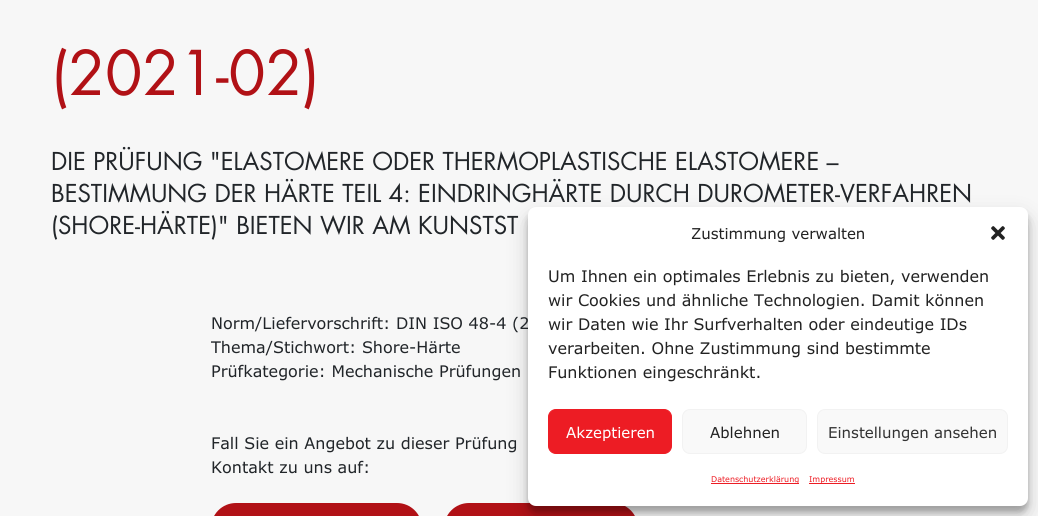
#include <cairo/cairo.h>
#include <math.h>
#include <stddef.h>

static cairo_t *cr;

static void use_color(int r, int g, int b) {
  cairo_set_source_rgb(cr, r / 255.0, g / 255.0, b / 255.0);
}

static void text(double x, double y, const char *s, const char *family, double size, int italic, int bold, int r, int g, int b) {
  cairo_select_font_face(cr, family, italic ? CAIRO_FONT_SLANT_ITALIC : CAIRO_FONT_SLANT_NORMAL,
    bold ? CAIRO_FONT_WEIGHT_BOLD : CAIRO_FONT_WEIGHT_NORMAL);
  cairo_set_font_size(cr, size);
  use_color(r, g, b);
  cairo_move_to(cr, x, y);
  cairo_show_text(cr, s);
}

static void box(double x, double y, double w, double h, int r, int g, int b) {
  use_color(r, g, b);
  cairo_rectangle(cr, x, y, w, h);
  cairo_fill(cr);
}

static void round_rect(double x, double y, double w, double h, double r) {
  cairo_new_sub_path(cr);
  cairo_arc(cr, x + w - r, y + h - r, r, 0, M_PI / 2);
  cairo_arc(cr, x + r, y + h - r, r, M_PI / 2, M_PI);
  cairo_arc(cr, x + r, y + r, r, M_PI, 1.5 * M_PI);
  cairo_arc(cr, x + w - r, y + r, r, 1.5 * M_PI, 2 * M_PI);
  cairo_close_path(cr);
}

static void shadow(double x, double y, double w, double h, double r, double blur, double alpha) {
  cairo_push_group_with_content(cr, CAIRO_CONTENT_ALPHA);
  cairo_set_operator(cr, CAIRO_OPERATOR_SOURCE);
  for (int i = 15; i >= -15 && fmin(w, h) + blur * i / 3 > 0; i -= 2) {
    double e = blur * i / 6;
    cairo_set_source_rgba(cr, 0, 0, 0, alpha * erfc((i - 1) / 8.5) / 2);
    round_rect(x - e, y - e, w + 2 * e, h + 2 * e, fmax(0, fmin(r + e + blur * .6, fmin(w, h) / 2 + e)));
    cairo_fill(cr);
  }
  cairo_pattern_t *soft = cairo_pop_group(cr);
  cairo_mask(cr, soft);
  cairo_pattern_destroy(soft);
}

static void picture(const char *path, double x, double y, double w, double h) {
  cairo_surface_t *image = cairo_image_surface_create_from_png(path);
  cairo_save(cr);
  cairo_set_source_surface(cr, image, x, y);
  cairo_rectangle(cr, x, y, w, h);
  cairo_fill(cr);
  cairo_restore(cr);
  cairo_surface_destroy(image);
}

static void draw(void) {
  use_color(247, 247, 247);
  cairo_paint(cr);
  use_color(177, 17, 22);
  round_rect(211, 503, 211, 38, 25);
  cairo_fill(cr);
  round_rect(444, 503, 194, 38, 25);
  cairo_fill(cr);
  use_color(0, 0, 0);
  shadow(528, 213, 500, 299, 8, 3, 0.23);
  shadow(528, 217, 500, 299, 8, 10, 0.19);
  text(51, 95, "(2021-02)", "Futura", 60, 0, 0, 177, 17, 22);
  text(51, 170, "DIE PRÜFUNG \"ELASTOMERE ODER THERMOPLASTISCHE ELASTOMERE –", "Futura", 24, 0, 0, 33, 37, 41);
  text(51, 202, "BESTIMMUNG DER HÄRTE TEIL 4: EINDRINGHÄRTE DURCH DUROMETER-VERFAHREN", "Futura", 24, 0, 0, 33, 37, 41);
  text(51, 234, "(SHORE-HÄRTE)\" BIETEN WIR AM KUNSTST", "Futura", 24, 0, 0, 33, 37, 41);
  text(211, 329, "Norm/Liefervorschrift: DIN ISO 48-4 (2", "Verdana", 16, 0, 0, 33, 37, 41);
  text(211, 353, "Thema/Stichwort: Shore-Härte", "Verdana", 16, 0, 0, 33, 37, 41);
  text(211, 377, "Prüfkategorie: Mechanische Prüfungen", "Verdana", 16, 0, 0, 33, 37, 41);
  text(211, 449, "Fall Sie ein Angebot zu dieser Prüfung", "Verdana", 16, 0, 0, 33, 37, 41);
  text(211, 473, "Kontakt zu uns auf:", "Verdana", 16, 0, 0, 33, 37, 41);
  use_color(255, 255, 255);
  round_rect(528, 207, 500, 299, 8);
  cairo_fill(cr);
  text(691, 239, "Zustimmung verwalten", "Verdana", 15, 0, 0, 34, 34, 34);
  picture("img_01.png", 991, 226, 14, 14);
  text(548, 282, "Um Ihnen ein optimales Erlebnis zu bieten, verwenden", "Verdana", 16, 0, 0, 34, 34, 34);
  text(548, 306, "wir Cookies und ähnliche Technologien. Damit können", "Verdana", 16, 0, 0, 34, 34, 34);
  text(548, 330, "wir Daten wie Ihr Surfverhalten oder eindeutige IDs", "Verdana", 16, 0, 0, 34, 34, 34);
  text(548, 354, "verarbeiten. Ohne Zustimmung sind bestimmte", "Verdana", 16, 0, 0, 34, 34, 34);
  text(548, 378, "Funktionen eingeschränkt.", "Verdana", 16, 0, 0, 34, 34, 34);
  use_color(237, 28, 36);
  round_rect(548.5, 409.5, 123, 44, 7.5);
  cairo_fill_preserve(cr);
  cairo_set_line_width(cr, 1);
  cairo_stroke(cr);
  text(566, 438, "Akzeptieren", "Verdana", 15, 0, 0, 255, 255, 255);
  use_color(249, 249, 249);
  round_rect(682.5, 409.5, 124, 44, 7.5);
  cairo_fill_preserve(cr);
  use_color(242, 242, 242);
  cairo_stroke(cr);
  text(710, 438, "Ablehnen", "Verdana", 15, 0, 0, 34, 34, 34);
  use_color(249, 249, 249);
  round_rect(817.5, 409.5, 190, 44, 7.5);
  cairo_fill_preserve(cr);
  use_color(242, 242, 242);
  cairo_stroke(cr);
  text(828, 438, "Einstellungen ansehen", "Verdana", 15, 0, 0, 51, 51, 51);
  box(711, 483, 88, 1, 237, 28, 36);
  text(711, 482, "Datenschutzerklärung", "Verdana", 8, 0, 0, 237, 28, 36);
  box(809, 483, 46, 1, 237, 28, 36);
  text(809, 482, "Impressum", "Verdana", 8, 0, 0, 237, 28, 36);
}

int main(void) {
  cairo_surface_t *surface = cairo_image_surface_create(CAIRO_FORMAT_RGB24, 1038, 516);
  cr = cairo_create(surface);
  cairo_font_options_t *options = cairo_font_options_create();
  cairo_font_options_set_hint_metrics(options, CAIRO_HINT_METRICS_OFF);
  cairo_font_options_set_hint_style(options, CAIRO_HINT_STYLE_NONE);
  cairo_set_font_options(cr, options);
  cairo_set_miter_limit(cr, 4);
  draw();
  cairo_surface_write_to_png(surface, "out.png");
  cairo_font_options_destroy(options);
  cairo_destroy(cr);
  cairo_surface_destroy(surface);
  return 0;
}
